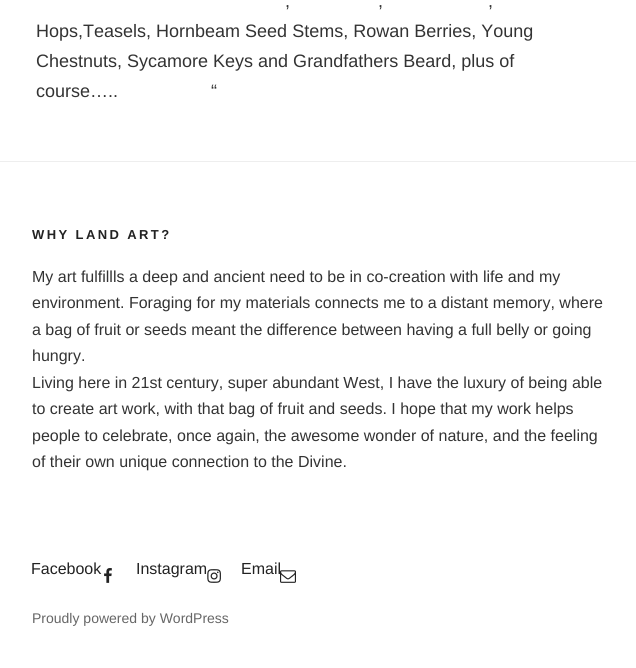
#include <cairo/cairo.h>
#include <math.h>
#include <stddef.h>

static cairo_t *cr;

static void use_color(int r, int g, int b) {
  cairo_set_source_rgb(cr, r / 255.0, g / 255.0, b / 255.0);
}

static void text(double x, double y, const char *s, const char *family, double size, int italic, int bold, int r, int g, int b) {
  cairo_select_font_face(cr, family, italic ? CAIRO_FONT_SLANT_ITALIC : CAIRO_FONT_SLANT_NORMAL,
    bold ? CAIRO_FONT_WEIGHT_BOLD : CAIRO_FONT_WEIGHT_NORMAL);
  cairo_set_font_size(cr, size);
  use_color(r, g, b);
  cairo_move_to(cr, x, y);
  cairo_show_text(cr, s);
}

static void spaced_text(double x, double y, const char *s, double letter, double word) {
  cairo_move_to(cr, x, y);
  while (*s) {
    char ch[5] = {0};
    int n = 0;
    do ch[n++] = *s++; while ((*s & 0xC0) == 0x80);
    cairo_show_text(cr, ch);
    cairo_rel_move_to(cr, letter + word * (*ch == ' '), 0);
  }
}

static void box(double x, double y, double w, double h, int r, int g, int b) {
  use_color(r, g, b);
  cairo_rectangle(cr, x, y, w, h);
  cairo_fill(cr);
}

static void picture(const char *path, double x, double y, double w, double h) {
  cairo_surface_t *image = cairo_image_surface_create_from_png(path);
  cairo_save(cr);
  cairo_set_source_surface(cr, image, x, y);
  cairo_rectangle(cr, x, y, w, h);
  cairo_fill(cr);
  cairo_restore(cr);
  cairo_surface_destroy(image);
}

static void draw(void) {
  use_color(255, 255, 255);
  cairo_paint(cr);
  box(0, 161, 636, 1, 238, 238, 238);
  picture("img_01.png", 104, 568, 8, 15);
  picture("img_02.png", 207, 569, 14, 14);
  text(285, 7, ",", "Liberation Sans", 18, 0, 0, 51, 51, 51);
  text(378, 7, ",", "Liberation Sans", 18, 0, 0, 51, 51, 51);
  text(488, 7, ",", "Liberation Sans", 18, 0, 0, 51, 51, 51);
  text(36, 37, "Hops,Teasels, Hornbeam Seed Stems, Rowan Berries, Young", "Liberation Sans", 18, 0, 0, 51, 51, 51);
  text(36, 67, "Chestnuts, Sycamore Keys and Grandfathers Beard, plus of", "Liberation Sans", 18, 0, 0, 51, 51, 51);
  text(211, 97, "“", "Liberation Sans", 18, 0, 0, 51, 51, 51);
  text(36, 97, "course…..", "Liberation Sans", 18, 0, 0, 51, 51, 51);
  cairo_select_font_face(cr, "Liberation Sans", CAIRO_FONT_SLANT_NORMAL, CAIRO_FONT_WEIGHT_BOLD);
  cairo_set_font_size(cr, 13);
  use_color(34, 34, 34);
  spaced_text(32, 239, "WHY LAND ART?", 2.4, 0);
  text(32, 282, "My art fulfillls a deep and ancient need to be in co-creation with life and my", "Liberation Sans", 16, 0, 0, 51, 51, 51);
  text(32, 308, "environment. Foraging for my materials connects me to a distant memory, where", "Liberation Sans", 16, 0, 0, 51, 51, 51);
  text(32, 335, "a bag of fruit or seeds meant the difference between having a full belly or going", "Liberation Sans", 16, 0, 0, 51, 51, 51);
  text(32, 361, "hungry.", "Liberation Sans", 16, 0, 0, 51, 51, 51);
  text(32, 388, "Living here in 21st century, super abundant West, I have the luxury of being able", "Liberation Sans", 16, 0, 0, 51, 51, 51);
  text(32, 414, "to create art work, with that bag of fruit and seeds. I hope that my work helps", "Liberation Sans", 16, 0, 0, 51, 51, 51);
  text(32, 441, "people to celebrate, once again, the awesome wonder of nature, and the feeling", "Liberation Sans", 16, 0, 0, 51, 51, 51);
  text(32, 467, "of their own unique connection to the Divine.", "Liberation Sans", 16, 0, 0, 51, 51, 51);
  text(31, 574, "Facebook", "Liberation Sans", 16, 0, 0, 34, 34, 34);
  text(136, 574, "Instagram", "Liberation Sans", 16, 0, 0, 34, 34, 34);
  text(241, 574, "Email", "Liberation Sans", 16, 0, 0, 34, 34, 34);
  picture("img_03.png", 280, 570, 16, 13);
  text(32, 623, "Proudly powered by WordPress", "Liberation Sans", 14, 0, 0, 102, 102, 102);
}

int main(void) {
  cairo_surface_t *surface = cairo_image_surface_create(CAIRO_FORMAT_RGB24, 636, 668);
  cr = cairo_create(surface);
  cairo_font_options_t *options = cairo_font_options_create();
  cairo_font_options_set_hint_metrics(options, CAIRO_HINT_METRICS_OFF);
  cairo_font_options_set_hint_style(options, CAIRO_HINT_STYLE_NONE);
  cairo_set_font_options(cr, options);
  cairo_set_miter_limit(cr, 4);
  draw();
  cairo_surface_write_to_png(surface, "out.png");
  cairo_font_options_destroy(options);
  cairo_destroy(cr);
  cairo_surface_destroy(surface);
  return 0;
}
